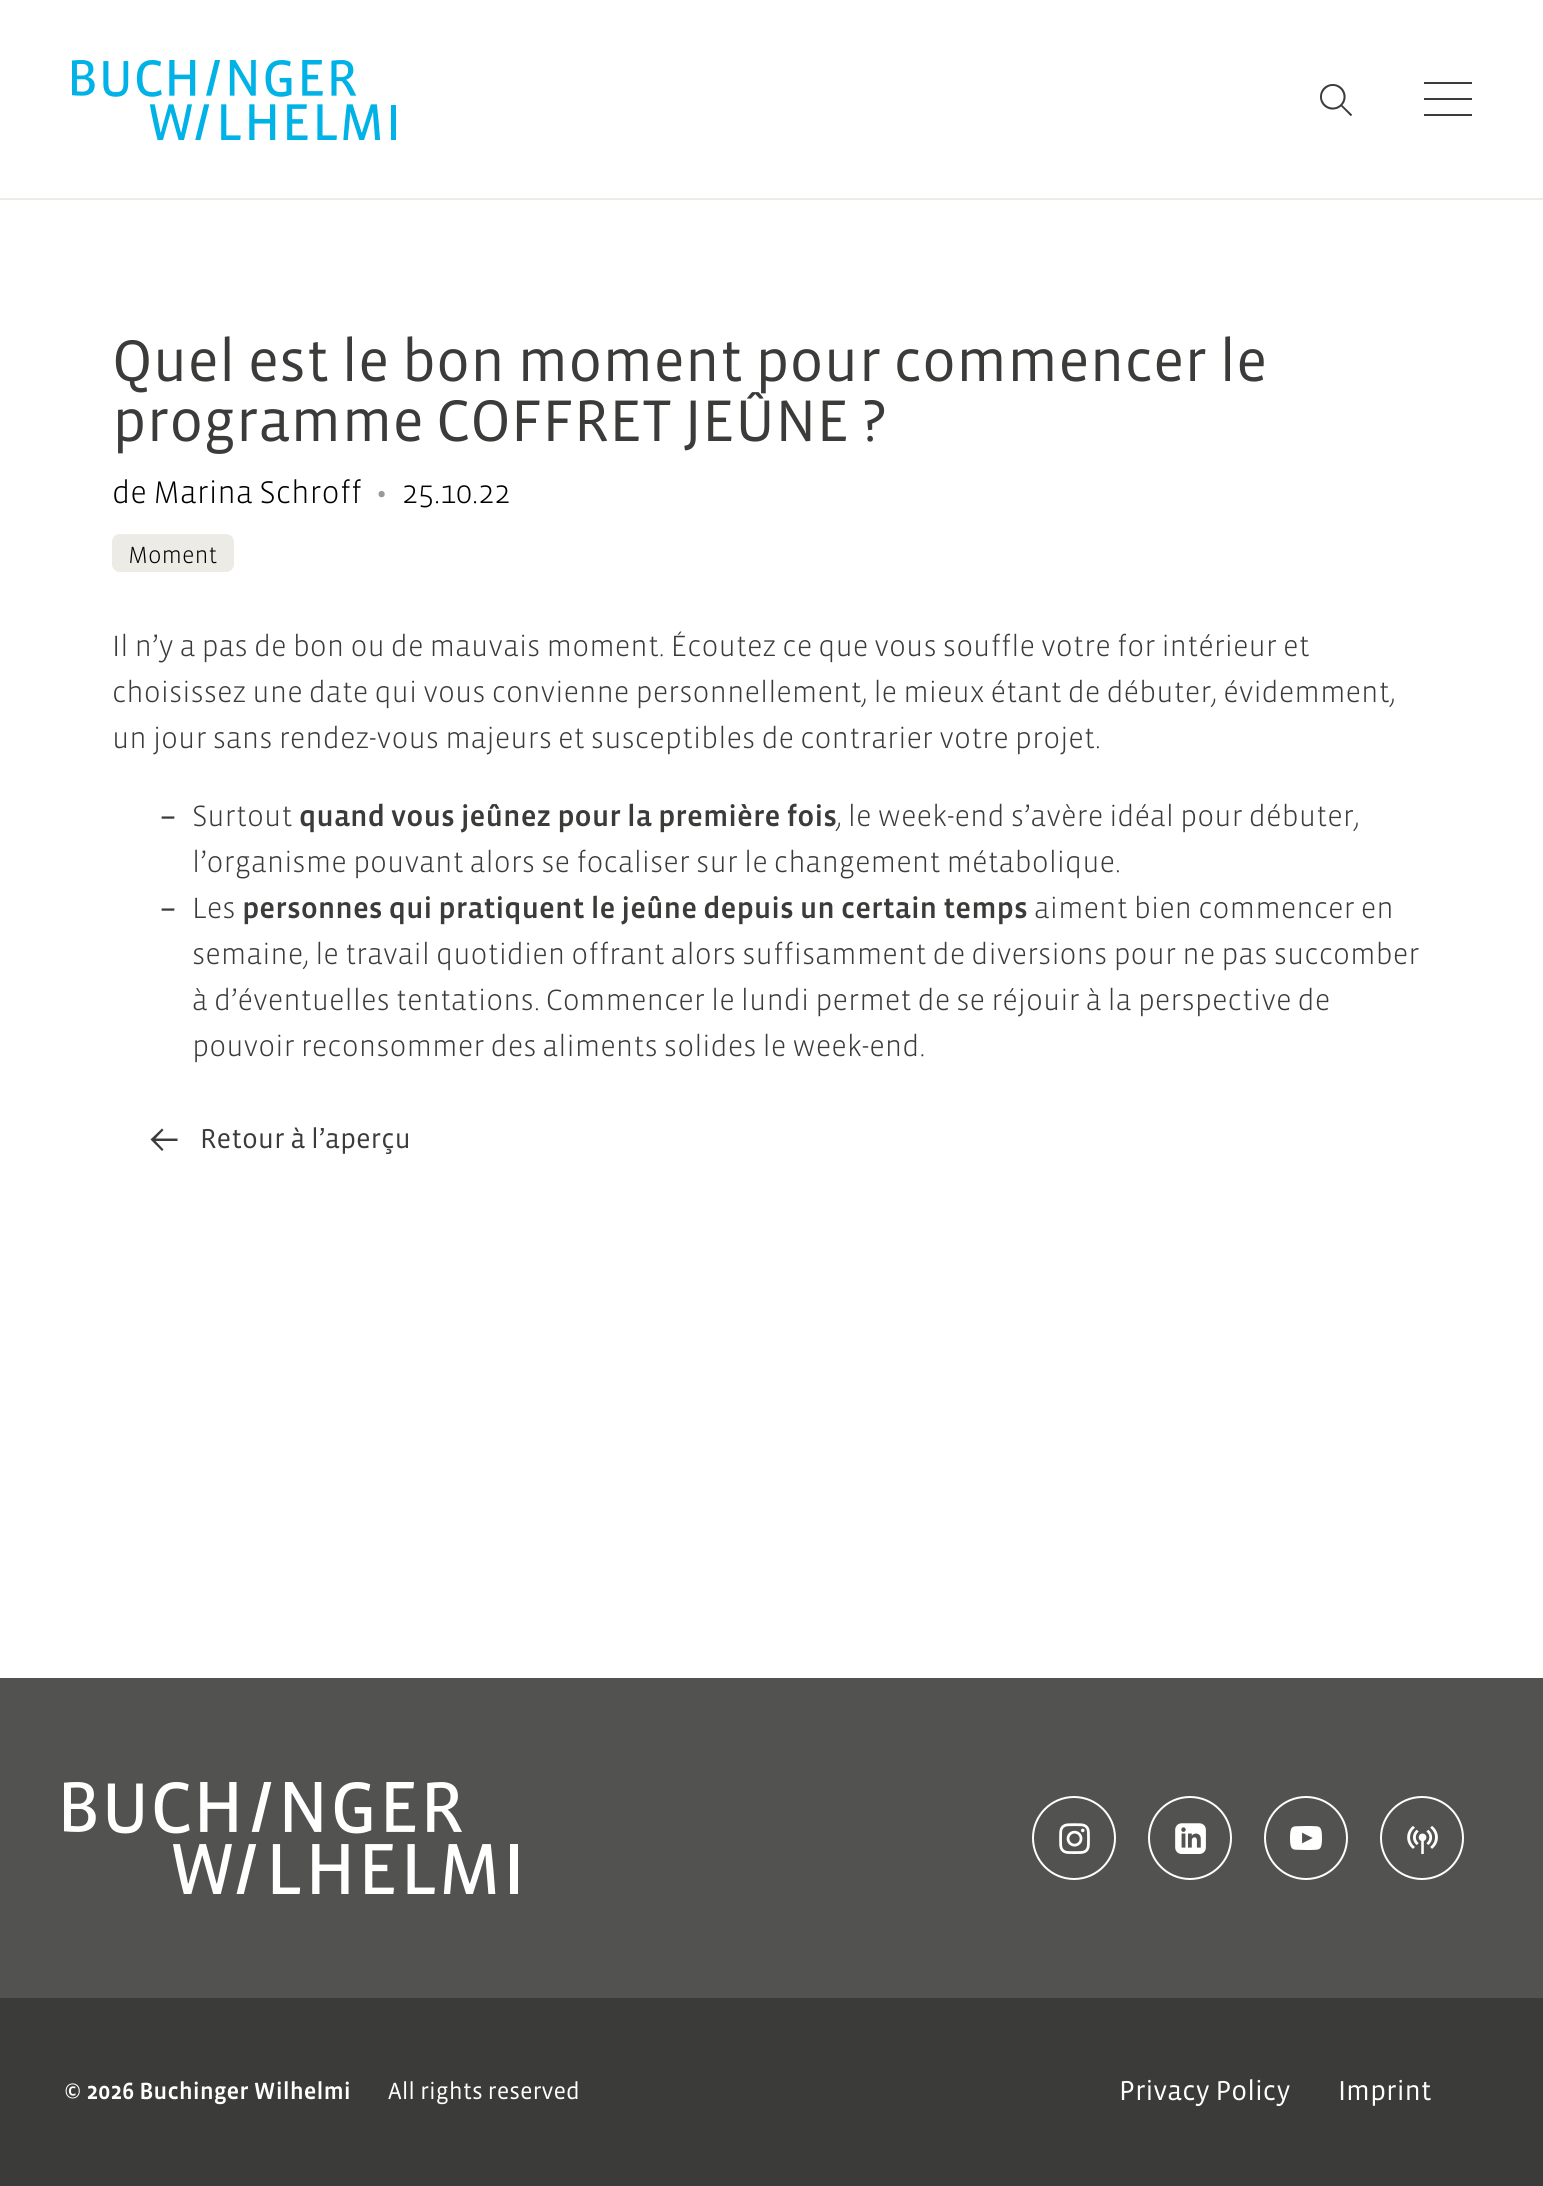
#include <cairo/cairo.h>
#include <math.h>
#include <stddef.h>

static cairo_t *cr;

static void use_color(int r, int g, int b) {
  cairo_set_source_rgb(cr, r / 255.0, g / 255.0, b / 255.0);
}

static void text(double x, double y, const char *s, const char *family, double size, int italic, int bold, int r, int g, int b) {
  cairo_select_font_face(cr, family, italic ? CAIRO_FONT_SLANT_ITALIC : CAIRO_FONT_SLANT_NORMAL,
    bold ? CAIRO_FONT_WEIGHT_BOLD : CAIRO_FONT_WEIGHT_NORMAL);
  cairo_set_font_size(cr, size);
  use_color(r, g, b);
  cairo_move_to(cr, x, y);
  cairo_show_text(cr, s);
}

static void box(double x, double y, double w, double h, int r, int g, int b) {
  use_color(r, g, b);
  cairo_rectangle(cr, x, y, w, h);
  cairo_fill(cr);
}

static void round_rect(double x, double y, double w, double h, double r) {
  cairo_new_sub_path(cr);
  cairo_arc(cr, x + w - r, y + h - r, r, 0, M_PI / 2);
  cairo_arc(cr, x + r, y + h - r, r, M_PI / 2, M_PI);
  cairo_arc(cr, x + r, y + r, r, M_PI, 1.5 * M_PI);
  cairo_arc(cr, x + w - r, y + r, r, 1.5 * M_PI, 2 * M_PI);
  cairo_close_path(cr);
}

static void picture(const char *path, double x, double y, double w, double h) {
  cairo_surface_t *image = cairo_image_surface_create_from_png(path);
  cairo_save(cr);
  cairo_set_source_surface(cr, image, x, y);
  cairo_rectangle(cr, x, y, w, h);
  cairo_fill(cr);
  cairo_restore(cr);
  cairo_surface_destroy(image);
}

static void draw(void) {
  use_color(255, 255, 255);
  cairo_paint(cr);
  box(0, 198, 1543, 2, 236, 235, 229);
  picture("img_01.png", 72, 60, 324, 80);
  picture("img_02.png", 1320, 84, 32, 32);
  box(1424, 98, 48, 2, 59, 59, 58);
  box(1424, 82, 48, 2, 59, 59, 58);
  box(1424, 114, 48, 2, 59, 59, 58);
  use_color(236, 235, 229);
  round_rect(112, 534, 122, 38, 8);
  cairo_fill(cr);
  use_color(59, 59, 58);
  cairo_new_path(cr);
  cairo_move_to(cr, 162, 1128.5);
  cairo_line_to(cr, 150.5, 1139.5);
  cairo_line_to(cr, 162, 1151);
  cairo_line_to(cr, 163.5, 1149.5);
  cairo_line_to(cr, 155.5, 1141);
  cairo_line_to(cr, 177.5, 1141);
  cairo_line_to(cr, 177.5, 1138.5);
  cairo_line_to(cr, 155.5, 1138.5);
  cairo_line_to(cr, 163.5, 1130);
  cairo_close_path(cr);
  cairo_fill(cr);
  box(0, 1678, 1543, 320, 82, 82, 81);
  picture("img_03.png", 64, 1782, 454, 112);
  cairo_arc(cr, 1074, 1838, 41, 0, 2 * M_PI);
  use_color(255, 255, 255);
  cairo_stroke(cr);
  picture("img_04.png", 1059, 1823, 31, 31);
  cairo_arc(cr, 1190, 1838, 41, 0, 2 * M_PI);
  cairo_stroke(cr);
  picture("img_05.png", 1175, 1823, 31, 31);
  cairo_arc(cr, 1306, 1838, 41, 0, 2 * M_PI);
  cairo_stroke(cr);
  picture("img_06.png", 1290, 1826, 32, 24);
  cairo_arc(cr, 1422, 1838, 41, 0, 2 * M_PI);
  cairo_stroke(cr);
  picture("img_07.png", 1407, 1826, 31, 28);
  box(0, 1998, 1543, 188, 59, 59, 58);
  text(112, 381, "Quel est le bon moment pour commencer le", "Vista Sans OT", 60, 0, 0, 59, 59, 58);
  text(112, 441, "programme COFFRET JEÛNE ?", "Vista Sans OT", 60, 0, 0, 59, 59, 58);
  text(112, 503, "de Marina Schroff", "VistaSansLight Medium", 32, 0, 0, 0, 0, 0);
  text(376, 503, "•", "Vista Sans OT", 32, 0, 0, 153, 153, 149);
  text(402, 503, "25.10.22", "VistaSansLight Medium", 32, 0, 0, 0, 0, 0);
  text(128, 563, "Moment", "VistaSansLight Medium", 24, 0, 0, 0, 0, 0);
  text(112, 656, "Il n’y a pas de bon ou de mauvais moment. Écoutez ce que vous souffle votre for intérieur et", "VistaSansLight Medium", 30, 0, 0, 59, 59, 58);
  text(112, 702, "choisissez une date qui vous convienne personnellement, le mieux étant de débuter, évidemment,", "VistaSansLight Medium", 30, 0, 0, 59, 59, 58);
  text(112, 748, "un jour sans rendez-vous majeurs et susceptibles de contrarier votre projet.", "VistaSansLight Medium", 30, 0, 0, 59, 59, 58);
  text(160, 826, "–", "VistaSansLight", 30, 0, 1, 59, 59, 58);
  text(192, 826, "Surtout", "VistaSansLight Medium", 30, 0, 0, 59, 59, 58);
  text(299, 826, "quand vous jeûnez pour la première fois", "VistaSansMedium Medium", 30, 0, 0, 59, 59, 58);
  text(836, 826, ", le week-end s’avère idéal pour débuter,", "VistaSansLight Medium", 30, 0, 0, 59, 59, 58);
  text(192, 872, "l’organisme pouvant alors se focaliser sur le changement métabolique.", "VistaSansLight Medium", 30, 0, 0, 59, 59, 58);
  text(160, 918, "–", "VistaSansLight", 30, 0, 1, 59, 59, 58);
  text(192, 918, "Les", "VistaSansLight Medium", 30, 0, 0, 59, 59, 58);
  text(242, 918, "personnes qui pratiquent le jeûne depuis un certain temps", "VistaSansMedium Medium", 30, 0, 0, 59, 59, 58);
  text(1034, 918, "aiment bien commencer en", "VistaSansLight Medium", 30, 0, 0, 59, 59, 58);
  text(192, 964, "semaine, le travail quotidien offrant alors suffisamment de diversions pour ne pas succomber", "VistaSansLight Medium", 30, 0, 0, 59, 59, 58);
  text(192, 1010, "à d’éventuelles tentations. Commencer le lundi permet de se réjouir à la perspective de", "VistaSansLight Medium", 30, 0, 0, 59, 59, 58);
  text(192, 1056, "pouvoir reconsommer des aliments solides le week-end.", "VistaSansLight Medium", 30, 0, 0, 59, 59, 58);
  text(200, 1148, "Retour à l’aperçu", "Vista Sans OT", 28, 0, 0, 59, 59, 58);
  text(64, 2099, "© 2026 Buchinger Wilhelmi", "VistaSansMedium Medium", 24, 0, 0, 255, 255, 255);
  text(388, 2099, "All rights reserved", "Vista Sans OT", 24, 0, 0, 255, 255, 255);
  text(1119, 2100, "Privacy Policy", "Vista Sans OT", 28, 0, 0, 255, 255, 255);
  text(1338, 2100, "Imprint", "Vista Sans OT", 28, 0, 0, 255, 255, 255);
}

int main(void) {
  cairo_surface_t *surface = cairo_image_surface_create(CAIRO_FORMAT_RGB24, 1543, 2186);
  cr = cairo_create(surface);
  cairo_font_options_t *options = cairo_font_options_create();
  cairo_font_options_set_hint_metrics(options, CAIRO_HINT_METRICS_OFF);
  cairo_font_options_set_hint_style(options, CAIRO_HINT_STYLE_NONE);
  cairo_set_font_options(cr, options);
  cairo_set_miter_limit(cr, 4);
  draw();
  cairo_surface_write_to_png(surface, "out.png");
  cairo_font_options_destroy(options);
  cairo_destroy(cr);
  cairo_surface_destroy(surface);
  return 0;
}
